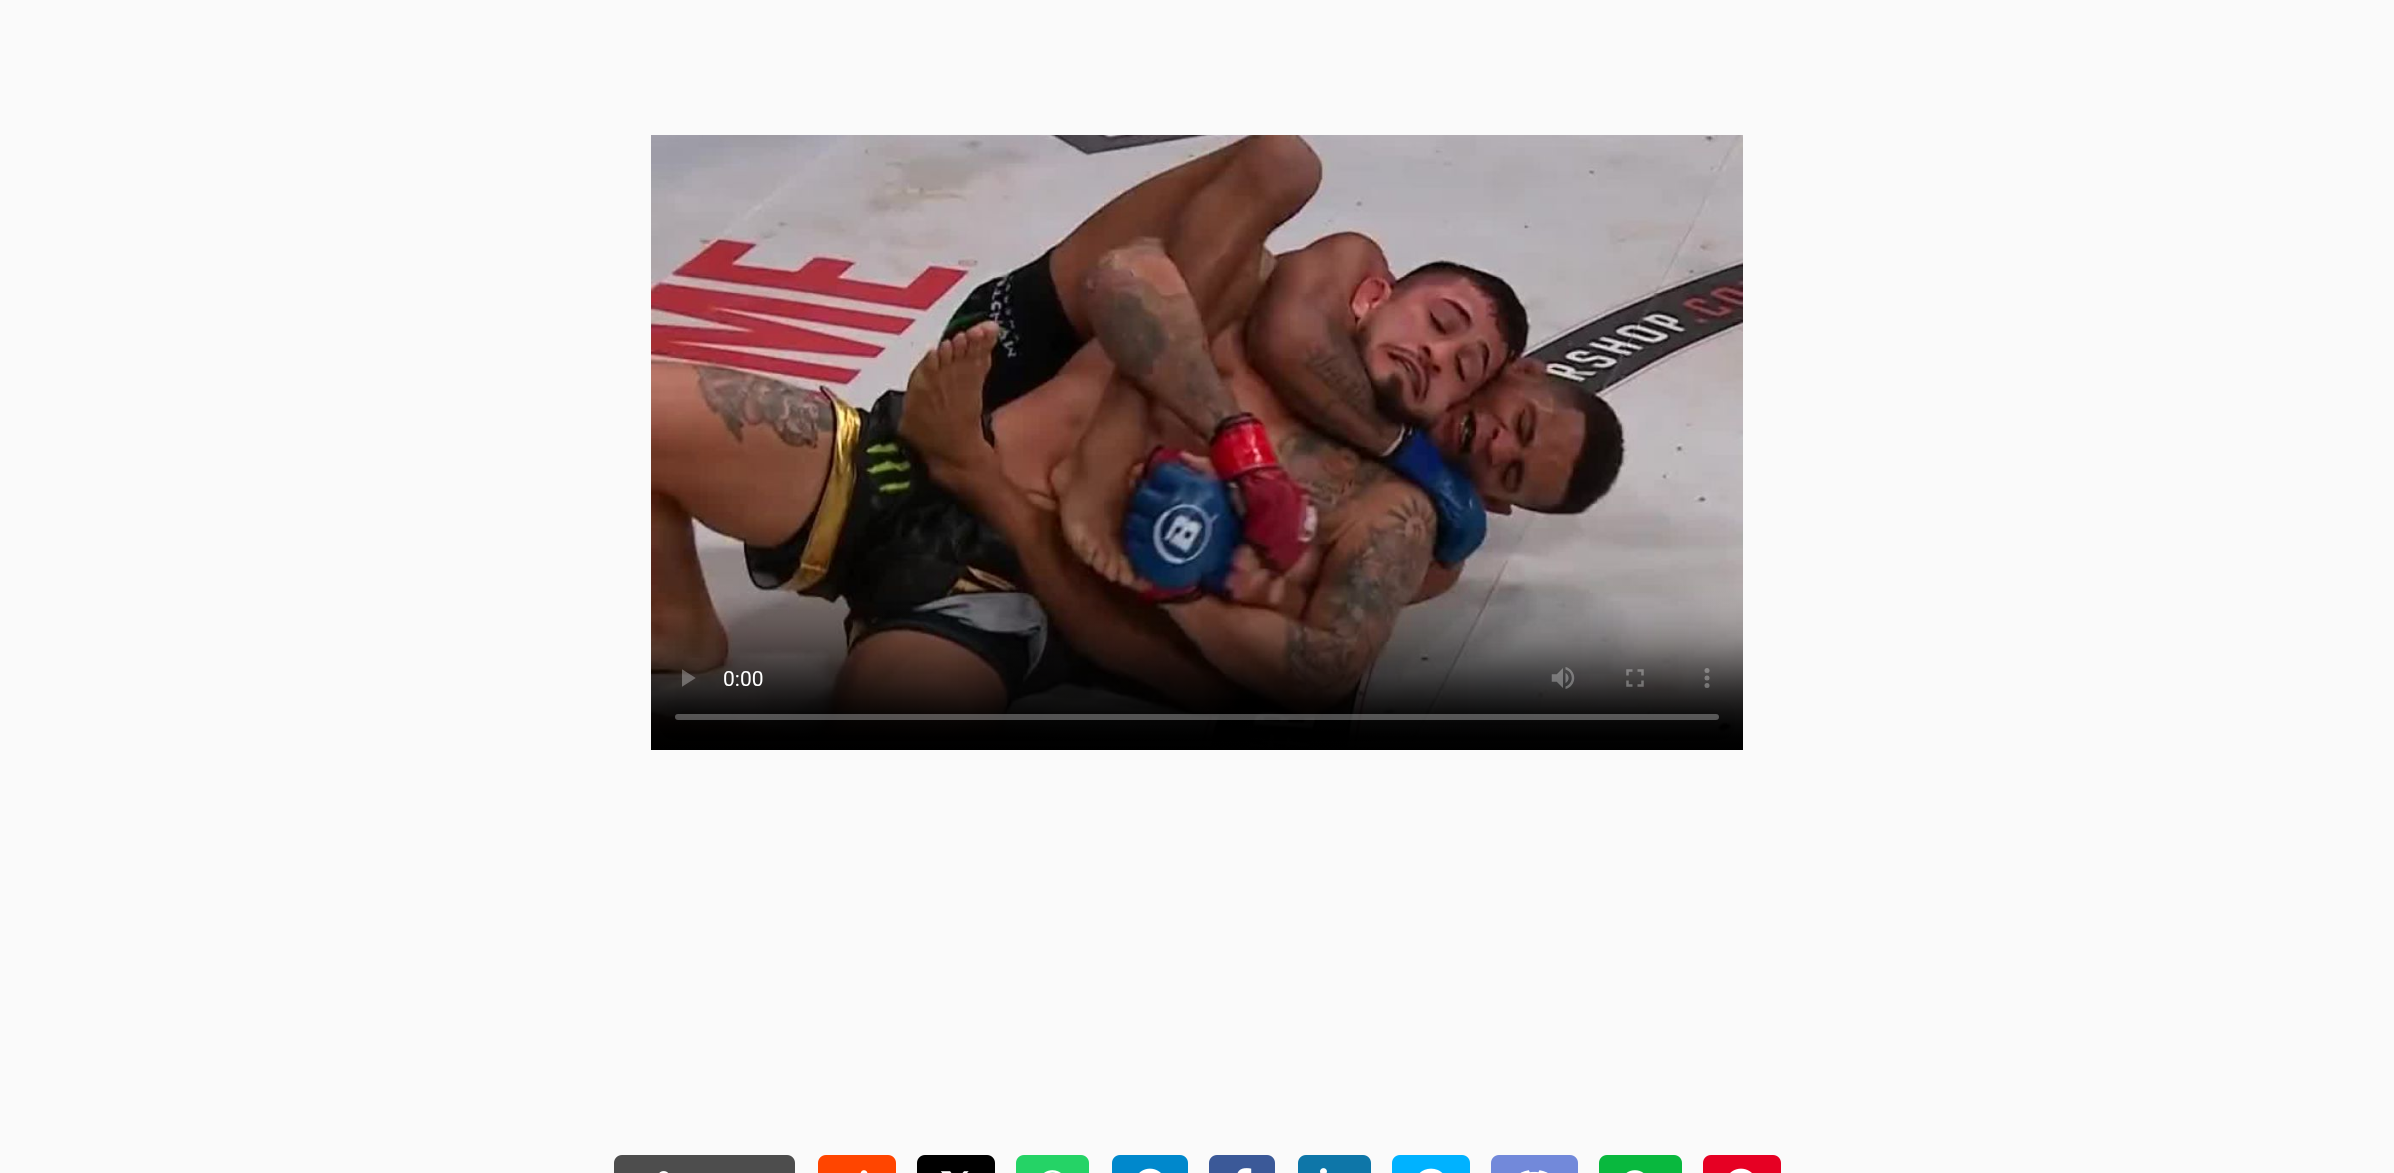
#include <cairo/cairo.h>
#include <math.h>
#include <stddef.h>

static cairo_t *cr;

static void use_color(int r, int g, int b) {
  cairo_set_source_rgb(cr, r / 255.0, g / 255.0, b / 255.0);
}

static void round_rect(double x, double y, double w, double h, double r) {
  cairo_new_sub_path(cr);
  cairo_arc(cr, x + w - r, y + h - r, r, 0, M_PI / 2);
  cairo_arc(cr, x + r, y + h - r, r, M_PI / 2, M_PI);
  cairo_arc(cr, x + r, y + r, r, M_PI, 1.5 * M_PI);
  cairo_arc(cr, x + w - r, y + r, r, 1.5 * M_PI, 2 * M_PI);
  cairo_close_path(cr);
}

static void picture(const char *path, double x, double y, double w, double h) {
  cairo_surface_t *image = cairo_image_surface_create_from_png(path);
  cairo_save(cr);
  cairo_set_source_surface(cr, image, x, y);
  cairo_rectangle(cr, x, y, w, h);
  cairo_fill(cr);
  cairo_restore(cr);
  cairo_surface_destroy(image);
}

static void draw(void) {
  use_color(250, 250, 250);
  cairo_paint(cr);
  picture("img_01.png", 651, 135, 1092, 615);
  use_color(77, 77, 77);
  round_rect(614, 1155, 181, 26, 8);
  cairo_fill(cr);
  picture("img_02.png", 659, 1171, 10, 2);
  use_color(255, 69, 0);
  round_rect(818, 1155, 78, 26, 8);
  cairo_fill(cr);
  picture("img_03.png", 860, 1170, 8, 3);
  use_color(0, 0, 0);
  round_rect(917, 1155, 78, 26, 8);
  cairo_fill(cr);
  picture("img_04.png", 940, 1171, 29, 2);
  use_color(37, 211, 102);
  round_rect(1016, 1155, 73, 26, 8);
  cairo_fill(cr);
  picture("img_05.png", 1044, 1170, 17, 3);
  use_color(0, 136, 204);
  round_rect(1112, 1155, 76, 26, 8);
  cairo_fill(cr);
  picture("img_06.png", 1139, 1168, 22, 5);
  use_color(59, 89, 152);
  round_rect(1209, 1155, 66, 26, 8);
  cairo_fill(cr);
  picture("img_07.png", 1237, 1168, 15, 5);
  use_color(14, 118, 168);
  round_rect(1298, 1155, 73, 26, 8);
  cairo_fill(cr);
  picture("img_08.png", 1320, 1168, 7, 5);
  use_color(0, 178, 255);
  round_rect(1392, 1155, 78, 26, 8);
  cairo_fill(cr);
  picture("img_09.png", 1419, 1168, 24, 5);
  use_color(114, 137, 218);
  round_rect(1491, 1155, 87, 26, 8);
  cairo_fill(cr);
  picture("img_10.png", 1520, 1170, 28, 3);
  use_color(9, 184, 62);
  round_rect(1599, 1155, 83, 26, 8);
  cairo_fill(cr);
  picture("img_11.png", 1626, 1170, 18, 3);
  use_color(230, 0, 35);
  round_rect(1703, 1155, 78, 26, 8);
  cairo_fill(cr);
  picture("img_12.png", 1730, 1168, 22, 5);
}

int main(void) {
  cairo_surface_t *surface = cairo_image_surface_create(CAIRO_FORMAT_RGB24, 2394, 1173);
  cr = cairo_create(surface);
  cairo_font_options_t *options = cairo_font_options_create();
  cairo_font_options_set_hint_metrics(options, CAIRO_HINT_METRICS_OFF);
  cairo_font_options_set_hint_style(options, CAIRO_HINT_STYLE_NONE);
  cairo_set_font_options(cr, options);
  cairo_set_miter_limit(cr, 4);
  draw();
  cairo_surface_write_to_png(surface, "out.png");
  cairo_font_options_destroy(options);
  cairo_destroy(cr);
  cairo_surface_destroy(surface);
  return 0;
}
